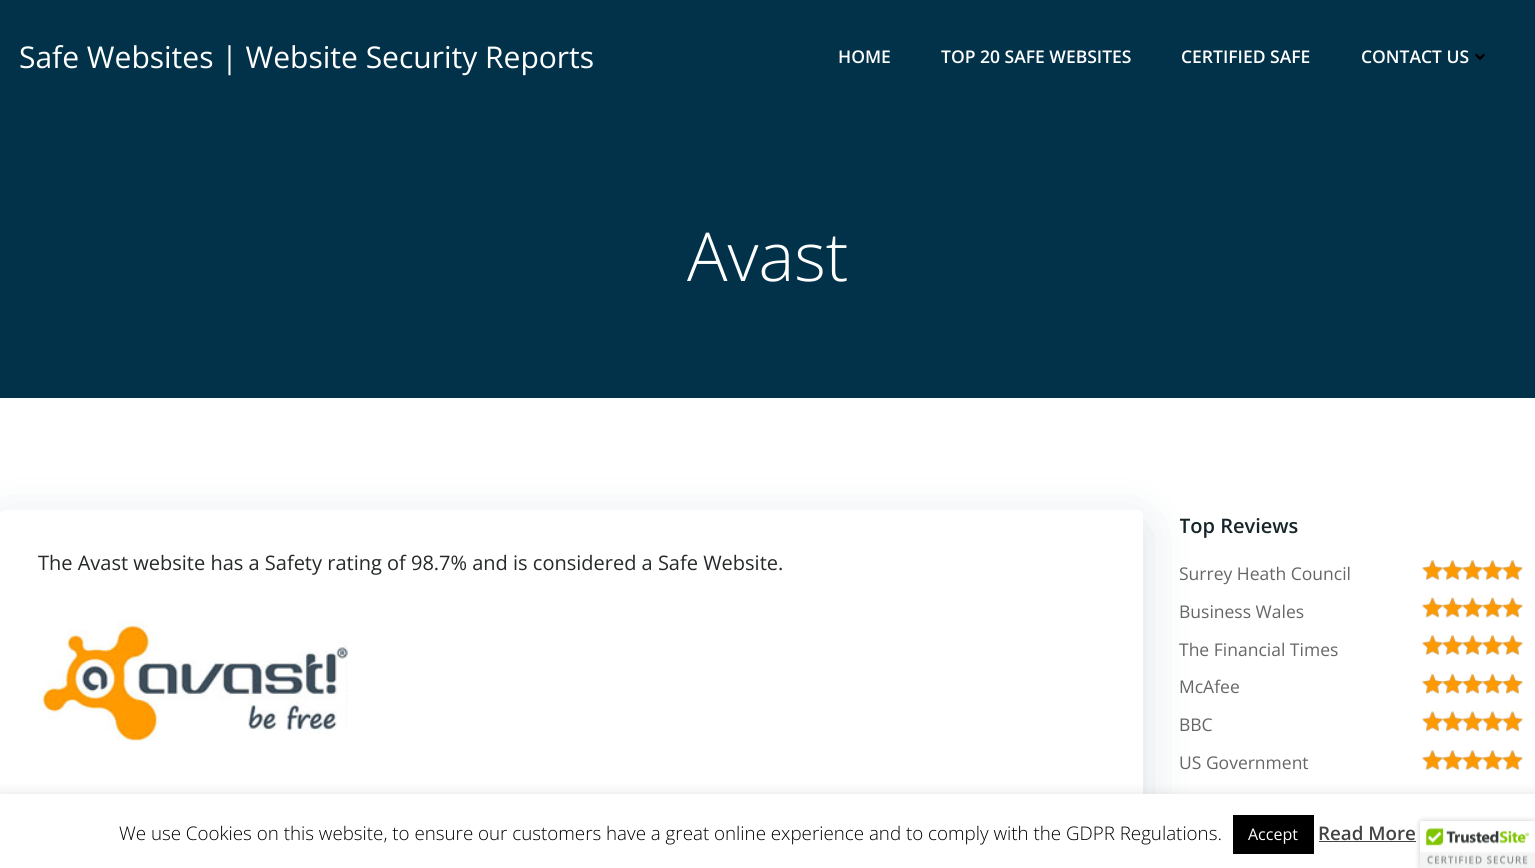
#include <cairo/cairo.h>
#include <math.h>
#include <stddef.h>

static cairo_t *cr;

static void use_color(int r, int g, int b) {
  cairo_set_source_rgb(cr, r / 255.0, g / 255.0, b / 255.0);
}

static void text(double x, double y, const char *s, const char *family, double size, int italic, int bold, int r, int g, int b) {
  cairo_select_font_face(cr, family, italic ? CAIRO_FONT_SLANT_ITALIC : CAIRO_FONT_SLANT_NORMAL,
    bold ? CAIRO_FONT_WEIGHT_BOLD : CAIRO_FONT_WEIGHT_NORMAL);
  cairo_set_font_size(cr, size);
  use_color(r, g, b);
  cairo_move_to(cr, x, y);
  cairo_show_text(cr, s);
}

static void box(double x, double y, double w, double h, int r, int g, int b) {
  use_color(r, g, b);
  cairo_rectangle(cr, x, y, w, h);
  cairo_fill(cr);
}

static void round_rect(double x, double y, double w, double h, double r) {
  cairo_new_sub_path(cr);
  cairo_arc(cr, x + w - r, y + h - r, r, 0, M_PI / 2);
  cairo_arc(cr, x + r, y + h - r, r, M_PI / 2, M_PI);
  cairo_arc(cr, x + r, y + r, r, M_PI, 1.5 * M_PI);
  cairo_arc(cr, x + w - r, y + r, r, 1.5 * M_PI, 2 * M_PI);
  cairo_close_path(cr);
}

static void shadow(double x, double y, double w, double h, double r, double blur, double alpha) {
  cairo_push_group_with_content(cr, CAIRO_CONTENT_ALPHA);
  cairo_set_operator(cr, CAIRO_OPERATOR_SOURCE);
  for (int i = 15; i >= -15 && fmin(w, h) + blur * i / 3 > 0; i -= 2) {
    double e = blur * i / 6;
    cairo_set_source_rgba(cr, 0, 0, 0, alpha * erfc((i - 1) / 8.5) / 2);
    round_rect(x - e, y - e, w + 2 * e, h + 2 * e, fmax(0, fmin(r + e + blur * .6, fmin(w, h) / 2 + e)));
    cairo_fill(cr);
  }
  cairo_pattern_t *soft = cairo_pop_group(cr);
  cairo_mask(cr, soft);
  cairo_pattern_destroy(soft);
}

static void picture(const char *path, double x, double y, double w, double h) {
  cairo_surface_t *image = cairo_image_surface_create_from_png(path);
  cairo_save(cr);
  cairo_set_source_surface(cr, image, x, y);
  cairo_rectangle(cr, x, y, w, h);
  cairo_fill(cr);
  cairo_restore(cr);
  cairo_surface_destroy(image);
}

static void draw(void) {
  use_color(255, 255, 255);
  cairo_paint(cr);
  box(0, 0, 1535, 398, 1, 50, 73);
  picture("img_01.png", 1475, 53, 10, 7);
  use_color(1, 51, 74);
  shadow(0, 523, 1143, 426, 6, 25, 0.15);
  use_color(255, 255, 255);
  round_rect(0, 510, 1143, 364, 6);
  cairo_fill(cr);
  picture("img_02.png", 37, 620, 311, 121);
  picture("img_03.png", 1422, 560, 101, 20);
  picture("img_04.png", 1422, 560, 101, 20);
  picture("img_05.png", 1422, 597, 101, 21);
  picture("img_06.png", 1422, 597, 101, 21);
  picture("img_07.png", 1422, 635, 101, 20);
  picture("img_08.png", 1422, 635, 101, 20);
  picture("img_09.png", 1422, 673, 101, 21);
  picture("img_10.png", 1422, 673, 101, 21);
  picture("img_11.png", 1422, 711, 101, 21);
  picture("img_12.png", 1422, 711, 101, 21);
  picture("img_13.png", 1422, 750, 101, 20);
  picture("img_14.png", 1422, 750, 101, 20);
  use_color(172, 171, 171);
  shadow(0, 793, 1535, 75, 0, 6, 0.3);
  box(0, 794, 1535, 74, 255, 255, 255);
  box(1233, 815, 81, 39, 0, 0, 0);
  box(1319, 841, 97, 1, 68, 68, 68);
  use_color(0, 0, 0);
  shadow(1420, 821, 115, 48, 2.5, 3, 0.2);
  use_color(255, 255, 255);
  cairo_new_path(cr);
  cairo_move_to(cr, 1422.5, 821);
  cairo_line_to(cr, 1535, 821);
  cairo_line_to(cr, 1535, 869);
  cairo_line_to(cr, 1420, 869);
  cairo_line_to(cr, 1420, 823.5);
  cairo_curve_to(cr, 1420, 822, 1421, 821, 1422.5, 821);
  cairo_close_path(cr);
  cairo_fill(cr);
  picture("img_15.png", 1420, 821, 115, 47);
  text(19, 68, "Safe Websites | Website Security Reports", "Open Sans", 30, 0, 0, 255, 255, 255);
  text(838, 63, "HOME", "Open Sans SemiBold", 17.5, 0, 0, 255, 255, 255);
  text(941, 63, "TOP 20 SAFE WEBSITES", "Open Sans SemiBold", 17.5, 0, 0, 255, 255, 255);
  text(1181, 63, "CERTIFIED SAFE", "Open Sans SemiBold", 17.5, 0, 0, 255, 255, 255);
  text(1361, 63, "CONTACT US", "Open Sans SemiBold", 17.5, 0, 0, 255, 255, 255);
  text(687, 281, "Avast", "Open Sans Light", 67.5, 0, 0, 255, 255, 255);
  text(38, 570, "The Avast website has a Safety rating of 98.7% and is considered a Safe Website.", "Open Sans", 20, 0, 0, 37, 41, 42);
  cairo_save(cr);
  cairo_rectangle(cr, 1180, 510, 355, 273);
  cairo_clip(cr);
  text(1179, 533, "Top Reviews", "Open Sans SemiBold", 20, 0, 0, 23, 37, 42);
  cairo_restore(cr);
  text(1179, 580, "Surrey Heath Council", "Open Sans", 17.5, 0, 0, 102, 102, 102);
  text(1179, 618, "Business Wales", "Open Sans", 17.5, 0, 0, 102, 102, 102);
  text(1179, 656, "The Financial Times", "Open Sans", 17.5, 0, 0, 102, 102, 102);
  text(1179, 693, "McAfee", "Open Sans", 17.5, 0, 0, 102, 102, 102);
  text(1179, 731, "BBC", "Open Sans", 17.5, 0, 0, 102, 102, 102);
  text(1179, 769, "US Government", "Open Sans", 17.5, 0, 0, 102, 102, 102);
  text(119, 840, "We use Cookies on this website, to ensure our customers have a great online experience and to comply with the GDPR Regulations.", "Open Sans Light", 18.75, 0, 0, 0, 0, 0);
  text(1248, 840, "Accept", "Open Sans", 16, 0, 0, 255, 255, 255);
  text(1318, 840, "Read More", "Open Sans SemiBold", 18.75, 0, 0, 68, 68, 68);
}

int main(void) {
  cairo_surface_t *surface = cairo_image_surface_create(CAIRO_FORMAT_RGB24, 1535, 868);
  cr = cairo_create(surface);
  cairo_font_options_t *options = cairo_font_options_create();
  cairo_font_options_set_hint_metrics(options, CAIRO_HINT_METRICS_OFF);
  cairo_font_options_set_hint_style(options, CAIRO_HINT_STYLE_NONE);
  cairo_set_font_options(cr, options);
  cairo_set_miter_limit(cr, 4);
  draw();
  cairo_surface_write_to_png(surface, "out.png");
  cairo_font_options_destroy(options);
  cairo_destroy(cr);
  cairo_surface_destroy(surface);
  return 0;
}
